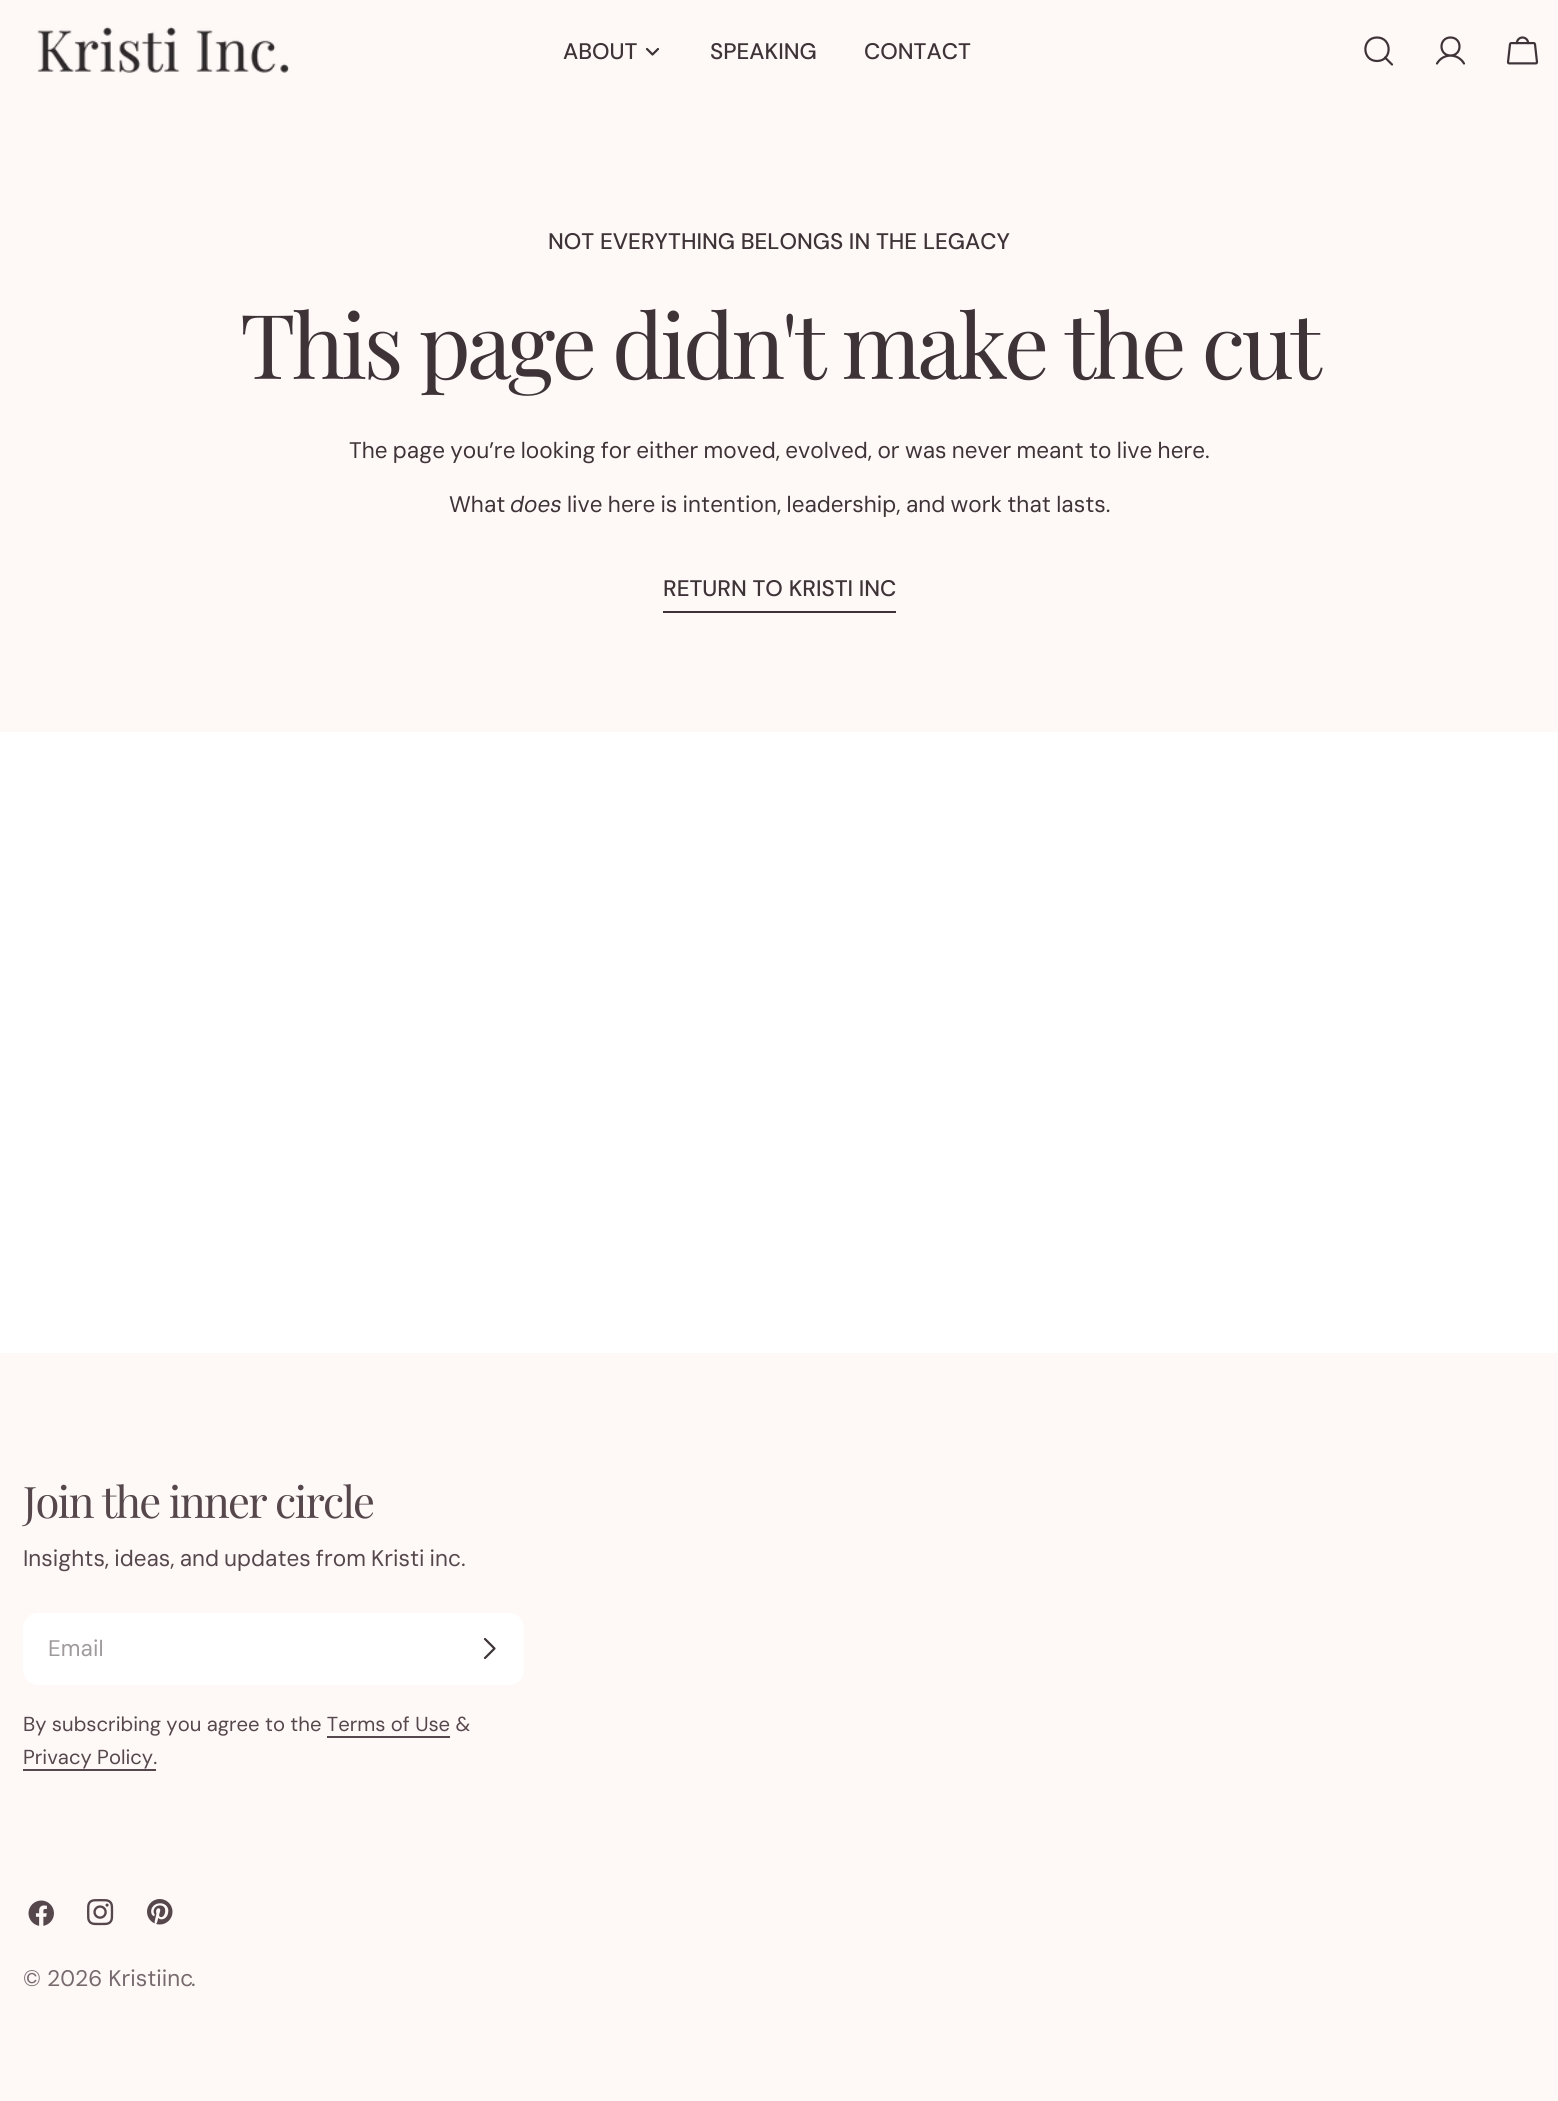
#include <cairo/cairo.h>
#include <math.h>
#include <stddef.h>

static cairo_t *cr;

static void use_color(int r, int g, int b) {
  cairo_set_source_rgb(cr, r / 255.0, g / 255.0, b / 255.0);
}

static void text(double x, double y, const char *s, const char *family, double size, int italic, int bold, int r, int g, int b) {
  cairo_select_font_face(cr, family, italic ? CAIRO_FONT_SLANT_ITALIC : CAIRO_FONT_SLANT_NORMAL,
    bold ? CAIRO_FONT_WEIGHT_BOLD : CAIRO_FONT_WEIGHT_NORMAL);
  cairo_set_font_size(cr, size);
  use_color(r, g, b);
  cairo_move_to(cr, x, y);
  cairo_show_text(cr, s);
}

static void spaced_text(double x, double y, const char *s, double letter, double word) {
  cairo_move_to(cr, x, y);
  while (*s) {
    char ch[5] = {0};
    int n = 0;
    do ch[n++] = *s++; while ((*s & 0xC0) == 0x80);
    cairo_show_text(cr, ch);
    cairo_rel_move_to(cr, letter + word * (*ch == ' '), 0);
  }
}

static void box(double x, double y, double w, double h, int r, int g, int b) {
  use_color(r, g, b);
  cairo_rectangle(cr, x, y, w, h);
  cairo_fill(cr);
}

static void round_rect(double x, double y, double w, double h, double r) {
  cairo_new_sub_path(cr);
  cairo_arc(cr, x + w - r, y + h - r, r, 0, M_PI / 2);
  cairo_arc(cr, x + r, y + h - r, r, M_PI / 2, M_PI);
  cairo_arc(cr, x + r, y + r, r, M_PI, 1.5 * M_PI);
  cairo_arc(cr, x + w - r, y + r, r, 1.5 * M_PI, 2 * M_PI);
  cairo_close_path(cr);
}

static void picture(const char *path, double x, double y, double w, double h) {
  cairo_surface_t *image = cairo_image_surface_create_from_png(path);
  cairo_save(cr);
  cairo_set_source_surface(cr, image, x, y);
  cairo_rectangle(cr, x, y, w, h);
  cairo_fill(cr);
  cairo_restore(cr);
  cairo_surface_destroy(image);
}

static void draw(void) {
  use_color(255, 255, 255);
  cairo_paint(cr);
  box(0, 0, 1558, 732, 254, 248, 247);
  picture("img_01.png", 37, 26, 253, 47);
  cairo_new_path(cr);
  cairo_move_to(cr, 658, 49);
  cairo_line_to(cr, 652.5, 54.5);
  cairo_line_to(cr, 647, 49);
  use_color(62, 52, 56);
  cairo_set_line_width(cr, 2.2);
  cairo_set_line_cap(cr, CAIRO_LINE_CAP_ROUND);
  cairo_set_line_join(cr, CAIRO_LINE_JOIN_ROUND);
  cairo_stroke(cr);
  cairo_new_path(cr);
  cairo_move_to(cr, 1377, 61);
  cairo_curve_to(cr, 1392.5, 61, 1392.5, 37.5, 1377, 37.5);
  cairo_curve_to(cr, 1361.5, 37.5, 1361.5, 61, 1377, 61);
  cairo_close_path(cr);
  cairo_move_to(cr, 1385, 57.5);
  cairo_line_to(cr, 1392, 64.5);
  cairo_stroke(cr);
  cairo_new_path(cr);
  cairo_move_to(cr, 1450.5, 55.5);
  cairo_curve_to(cr, 1462.5, 55.5, 1462.5, 37.5, 1450.5, 37.5);
  cairo_curve_to(cr, 1438.5, 37.5, 1438.5, 55.5, 1450.5, 55.5);
  cairo_close_path(cr);
  cairo_move_to(cr, 1437, 63.5);
  cairo_curve_to(cr, 1443, 53, 1458, 53, 1464, 63.5);
  cairo_stroke(cr);
  picture("img_02.png", 1506, 36, 33, 29);
  box(663, 611, 233, 2, 62, 52, 56);
  box(0, 1353, 1558, 748, 254, 248, 247);
  use_color(255, 255, 255);
  round_rect(23, 1613, 501, 72, 15);
  cairo_fill(cr);
  cairo_new_path(cr);
  cairo_move_to(cr, 485, 1639);
  cairo_line_to(cr, 494.5, 1648.5);
  cairo_line_to(cr, 485, 1658);
  use_color(62, 52, 56);
  cairo_stroke(cr);
  box(327, 1736, 123, 2, 85, 71, 76);
  box(23, 1769, 133, 2, 85, 71, 76);
  picture("img_03.png", 28, 1900, 26, 26);
  picture("img_04.png", 87, 1899, 27, 27);
  picture("img_05.png", 147, 1899, 26, 26);
  text(563, 59, "ABOUT", "DM Sans Medium", 22.5, 0, 0, 62, 52, 56);
  text(710, 59, "SPEAKING", "DM Sans Medium", 22.5, 0, 0, 62, 52, 56);
  text(864, 59, "CONTACT", "DM Sans Medium", 22.5, 0, 0, 62, 52, 56);
  text(548, 249, "NOT EVERYTHING BELONGS IN THE LEGACY", "DM Sans Medium", 22.5, 0, 0, 62, 52, 56);
  cairo_select_font_face(cr, "Playfair Display", CAIRO_FONT_SLANT_NORMAL, CAIRO_FONT_WEIGHT_NORMAL);
  cairo_set_font_size(cr, 89.5);
  spaced_text(240, 379, "This page didn't make the cut", -3.6, 0);
  cairo_select_font_face(cr, "DM Sans", CAIRO_FONT_SLANT_NORMAL, CAIRO_FONT_WEIGHT_NORMAL);
  cairo_set_font_size(cr, 22.5);
  spaced_text(349, 458, "The page you’re looking for either moved, evolved, or was never meant to live here.", 0, -0.75);
  text(449, 512, "What", "DM Sans", 22.5, 0, 0, 62, 52, 56);
  text(510, 512, "does", "DM Sans", 22.5, 1, 0, 62, 52, 56);
  cairo_select_font_face(cr, "DM Sans", CAIRO_FONT_SLANT_NORMAL, CAIRO_FONT_WEIGHT_NORMAL);
  spaced_text(567, 512, "live here is intention, leadership, and work that lasts.", 0, -0.75);
  text(663, 596, "RETURN TO KRISTI INC", "DM Sans Medium", 22.5, 0, 0, 62, 52, 56);
  cairo_select_font_face(cr, "Playfair Display", CAIRO_FONT_SLANT_NORMAL, CAIRO_FONT_WEIGHT_NORMAL);
  cairo_set_font_size(cr, 43.5);
  use_color(85, 71, 76);
  spaced_text(23, 1518, "Join the inner circle", -1.75, 0);
  cairo_select_font_face(cr, "DM Sans", CAIRO_FONT_SLANT_NORMAL, CAIRO_FONT_WEIGHT_NORMAL);
  cairo_set_font_size(cr, 22.5);
  spaced_text(23, 1566, "Insights, ideas, and updates from Kristi inc.", 0, -1);
  text(48, 1656, "Email", "DM Sans", 22.5, 0, 0, 159, 154, 156);
  text(23, 1731, "By subscribing you agree to the Terms of Use &", "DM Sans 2", 20.25, 0, 0, 85, 71, 76);
  text(23, 1764, "Privacy Policy.", "DM Sans 2", 20.25, 0, 0, 85, 71, 76);
  text(23, 1986, "© 2026 Kristiinc", "DM Sans", 22.5, 0, 0, 119, 106, 110);
  text(191, 1986, ".", "DM Sans", 22.5, 0, 0, 119, 106, 110);
}

int main(void) {
  cairo_surface_t *surface = cairo_image_surface_create(CAIRO_FORMAT_RGB24, 1558, 2101);
  cr = cairo_create(surface);
  cairo_font_options_t *options = cairo_font_options_create();
  cairo_font_options_set_hint_metrics(options, CAIRO_HINT_METRICS_OFF);
  cairo_font_options_set_hint_style(options, CAIRO_HINT_STYLE_NONE);
  cairo_set_font_options(cr, options);
  cairo_set_miter_limit(cr, 4);
  draw();
  cairo_surface_write_to_png(surface, "out.png");
  cairo_font_options_destroy(options);
  cairo_destroy(cr);
  cairo_surface_destroy(surface);
  return 0;
}
